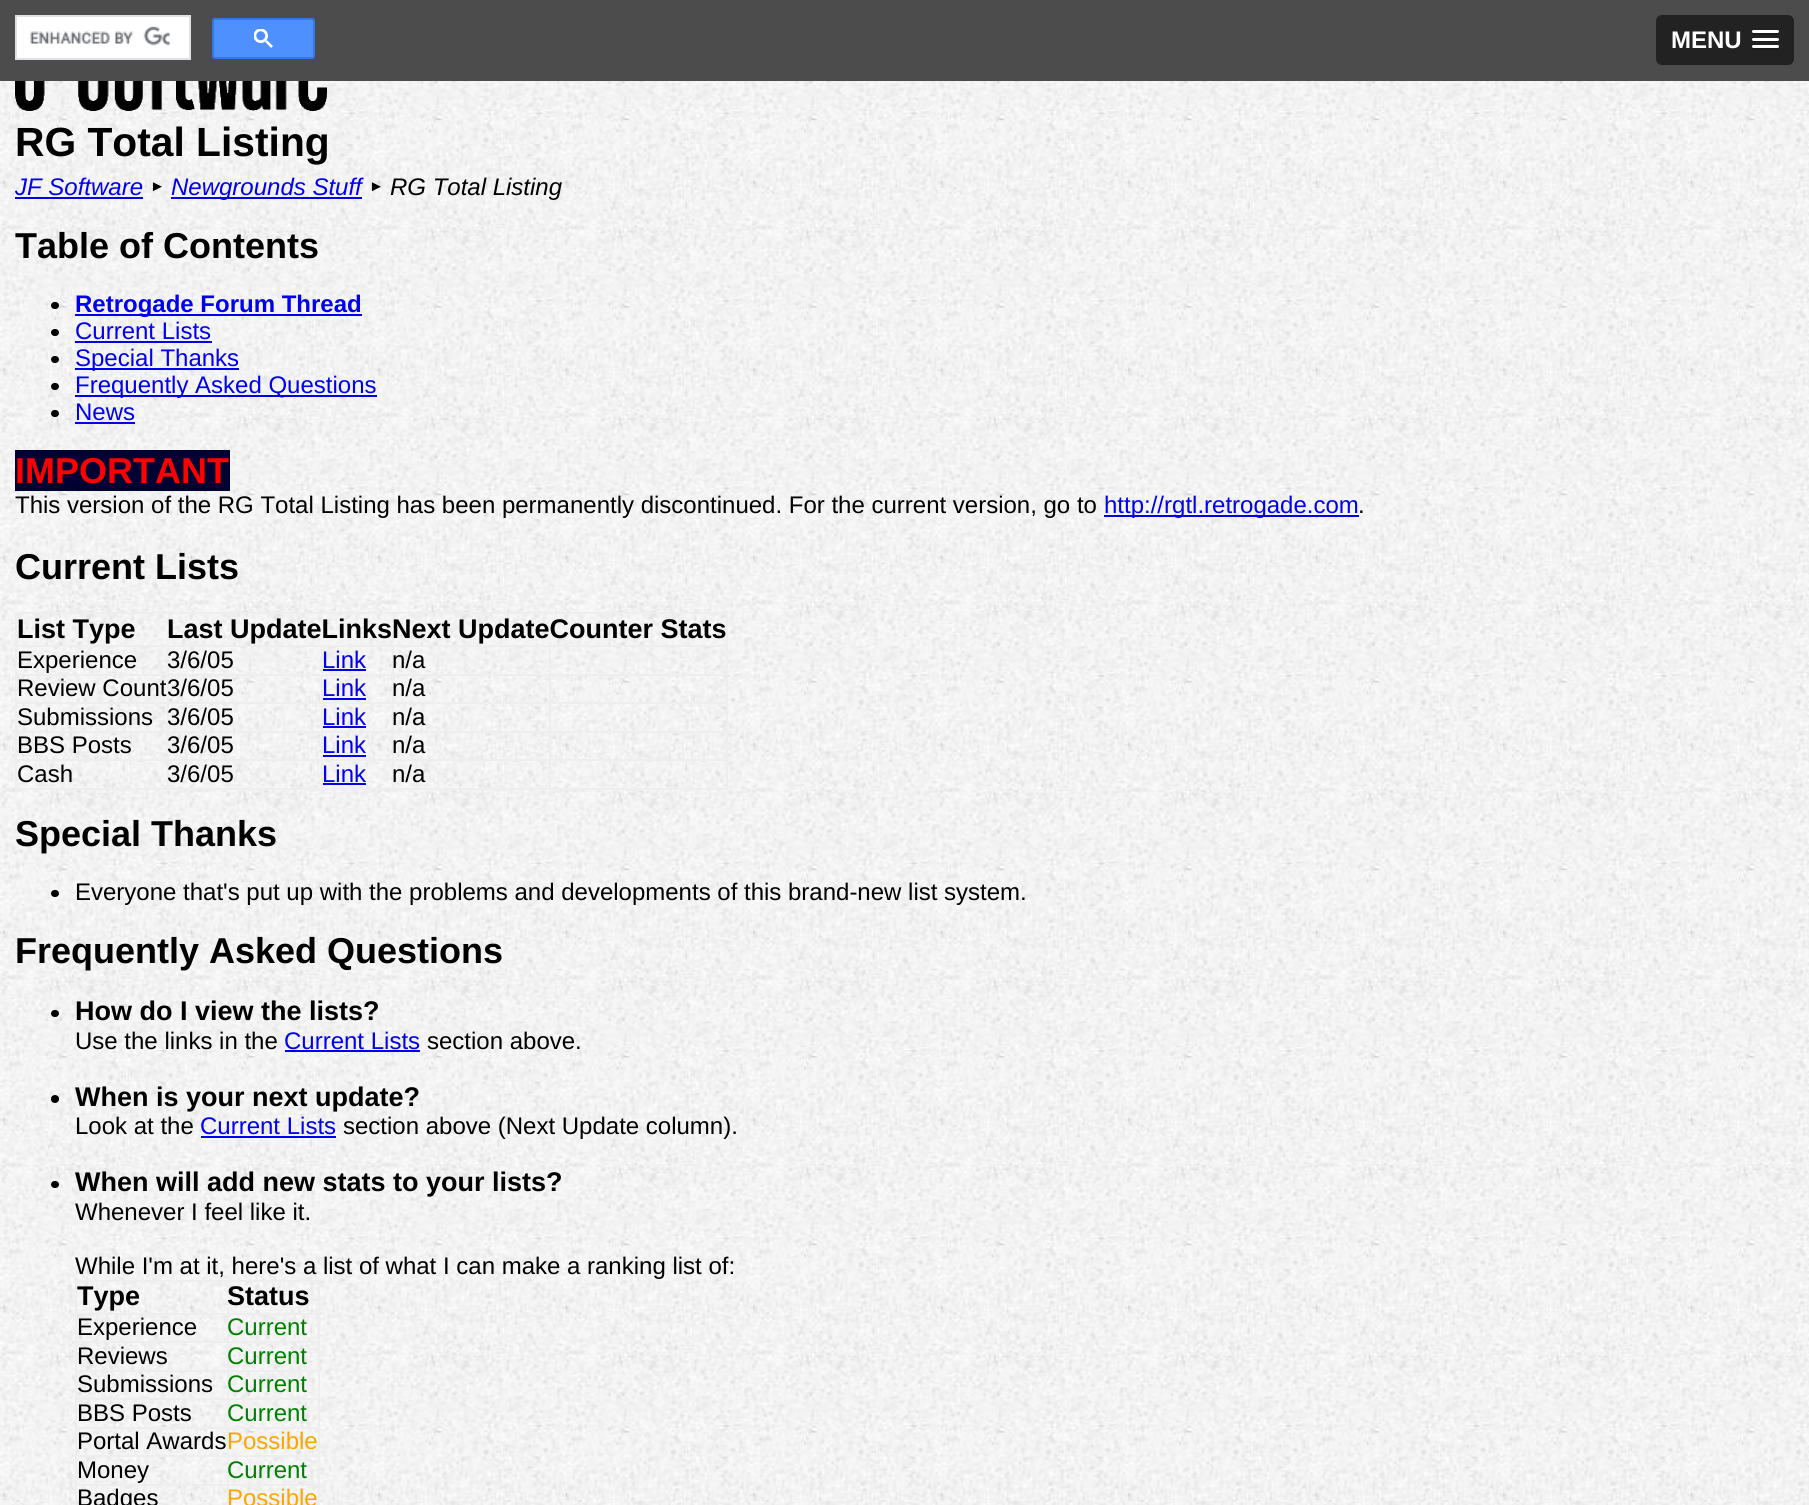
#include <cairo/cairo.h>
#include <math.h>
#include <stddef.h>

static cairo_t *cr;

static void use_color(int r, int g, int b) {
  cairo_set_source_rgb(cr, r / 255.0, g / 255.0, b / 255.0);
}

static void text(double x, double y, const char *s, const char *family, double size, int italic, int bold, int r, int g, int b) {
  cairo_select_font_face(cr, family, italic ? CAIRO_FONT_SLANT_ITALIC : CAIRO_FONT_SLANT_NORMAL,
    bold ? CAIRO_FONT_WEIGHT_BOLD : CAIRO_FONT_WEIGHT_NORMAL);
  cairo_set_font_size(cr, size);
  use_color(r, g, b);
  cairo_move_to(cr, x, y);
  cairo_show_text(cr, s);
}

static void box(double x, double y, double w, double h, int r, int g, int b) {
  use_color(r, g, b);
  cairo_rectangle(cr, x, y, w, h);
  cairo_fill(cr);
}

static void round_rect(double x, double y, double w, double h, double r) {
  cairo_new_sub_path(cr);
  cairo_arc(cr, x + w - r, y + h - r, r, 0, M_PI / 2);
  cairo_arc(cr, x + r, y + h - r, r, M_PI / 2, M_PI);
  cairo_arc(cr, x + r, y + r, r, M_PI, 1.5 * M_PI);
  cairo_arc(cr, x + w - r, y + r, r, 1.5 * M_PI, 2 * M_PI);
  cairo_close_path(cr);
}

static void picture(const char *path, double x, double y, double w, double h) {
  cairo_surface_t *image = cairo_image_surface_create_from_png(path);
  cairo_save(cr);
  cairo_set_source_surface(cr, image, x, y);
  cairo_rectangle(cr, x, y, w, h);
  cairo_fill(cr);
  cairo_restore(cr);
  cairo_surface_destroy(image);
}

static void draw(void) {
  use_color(255, 255, 255);
  cairo_paint(cr);
  picture("img_01.png", 0, 81, 1809, 1424);
  box(0, 0, 1809, 81, 76, 76, 76);
  use_color(255, 255, 255);
  cairo_rectangle(cr, 16, 16, 174, 43);
  cairo_fill_preserve(cr);
  use_color(223, 225, 229);
  cairo_stroke(cr);
  picture("img_02.png", 30, 26, 140, 20);
  use_color(77, 144, 254);
  round_rect(213, 19, 101, 39, 2);
  cairo_fill_preserve(cr);
  use_color(48, 121, 237);
  cairo_stroke(cr);
  picture("img_03.png", 254, 29, 19, 19);
  use_color(34, 34, 34);
  round_rect(1656, 15, 138, 50, 6);
  cairo_fill(cr);
  use_color(26, 26, 26);
  cairo_new_path(cr);
  cairo_move_to(cr, 1752.5, 32.5);
  cairo_line_to(cr, 1752, 34);
  cairo_curve_to(cr, 1752.5, 36, 1757, 35, 1757.5, 35);
  cairo_line_to(cr, 1773.5, 35);
  cairo_curve_to(cr, 1774, 35, 1778.5, 36, 1779, 34);
  cairo_line_to(cr, 1778.5, 32.5);
  cairo_line_to(cr, 1777.5, 33);
  cairo_line_to(cr, 1753.5, 33);
  cairo_close_path(cr);
  cairo_fill(cr);
  use_color(255, 255, 255);
  round_rect(1752, 30, 27, 3, 1.5);
  cairo_fill(cr);
  use_color(26, 26, 26);
  cairo_new_path(cr);
  cairo_move_to(cr, 1752, 39.5);
  cairo_curve_to(cr, 1750.5, 43, 1757.5, 42, 1757.5, 42);
  cairo_line_to(cr, 1773.5, 42);
  cairo_curve_to(cr, 1773.5, 42, 1780.5, 43, 1779, 39.5);
  cairo_curve_to(cr, 1778.5, 40, 1778, 40.5, 1777.5, 40.5);
  cairo_line_to(cr, 1753.5, 40.5);
  cairo_curve_to(cr, 1753, 40.5, 1752.5, 40, 1752, 39.5);
  cairo_close_path(cr);
  cairo_fill(cr);
  use_color(255, 255, 255);
  round_rect(1752, 38, 27, 3, 1.5);
  cairo_fill(cr);
  use_color(26, 26, 26);
  cairo_new_path(cr);
  cairo_move_to(cr, 1752.5, 47.5);
  cairo_line_to(cr, 1752, 49);
  cairo_curve_to(cr, 1752.5, 51, 1757, 50, 1757.5, 50);
  cairo_line_to(cr, 1773.5, 50);
  cairo_curve_to(cr, 1774, 50, 1778.5, 51, 1779, 49);
  cairo_line_to(cr, 1778.5, 47.5);
  cairo_line_to(cr, 1777.5, 48);
  cairo_line_to(cr, 1753.5, 48);
  cairo_close_path(cr);
  cairo_fill(cr);
  use_color(255, 255, 255);
  round_rect(1752, 45, 27, 3, 1.5);
  cairo_fill(cr);
  picture("img_04.png", 15, 81, 312, 30);
  box(15, 197, 128, 2, 0, 0, 238);
  box(171, 197, 191, 2, 0, 0, 238);
  use_color(0, 0, 0);
  round_rect(51, 302, 8, 7, 3.5);
  cairo_fill(cr);
  box(75, 314, 287, 2, 0, 0, 238);
  use_color(0, 0, 0);
  round_rect(51, 329, 8, 7, 3.5);
  cairo_fill(cr);
  box(75, 341, 137, 2, 0, 0, 238);
  use_color(0, 0, 0);
  round_rect(51, 356, 8, 7, 3.5);
  cairo_fill(cr);
  box(75, 368, 164, 2, 0, 0, 238);
  use_color(0, 0, 0);
  round_rect(51, 383, 8, 7, 3.5);
  cairo_fill(cr);
  box(75, 395, 302, 2, 0, 0, 238);
  use_color(0, 0, 0);
  round_rect(51, 410, 8, 7, 3.5);
  cairo_fill(cr);
  box(75, 422, 60, 2, 0, 0, 238);
  box(15, 450, 215, 41, 0, 0, 51);
  box(1104, 515, 255, 2, 0, 0, 238);
  box(15, 612, 713, 2, 238, 238, 238);
  box(726, 612, 2, 177, 238, 238, 238);
  box(15, 788, 713, 2, 238, 238, 238);
  box(15, 612, 2, 177, 238, 238, 238);
  box(549, 645, 179, 2, 238, 238, 238);
  box(549, 674, 179, 2, 238, 238, 238);
  box(549, 702, 179, 2, 238, 238, 238);
  box(549, 731, 179, 2, 238, 238, 238);
  box(549, 759, 179, 2, 238, 238, 238);
  box(549, 759, 2, 30, 238, 238, 238);
  box(392, 759, 159, 2, 238, 238, 238);
  box(549, 731, 2, 30, 238, 238, 238);
  box(392, 731, 159, 2, 238, 238, 238);
  box(549, 702, 2, 30, 238, 238, 238);
  box(392, 702, 159, 2, 238, 238, 238);
  box(549, 674, 2, 30, 238, 238, 238);
  box(392, 674, 159, 2, 238, 238, 238);
  box(549, 645, 2, 30, 238, 238, 238);
  box(392, 645, 159, 2, 238, 238, 238);
  box(392, 759, 2, 30, 238, 238, 238);
  box(321, 759, 72, 2, 238, 238, 238);
  box(392, 731, 2, 30, 238, 238, 238);
  box(321, 731, 72, 2, 238, 238, 238);
  box(392, 702, 2, 30, 238, 238, 238);
  box(321, 702, 72, 2, 238, 238, 238);
  box(392, 674, 2, 30, 238, 238, 238);
  box(321, 674, 72, 2, 238, 238, 238);
  box(392, 645, 2, 30, 238, 238, 238);
  box(321, 645, 72, 2, 238, 238, 238);
  box(321, 759, 2, 30, 238, 238, 238);
  box(167, 759, 156, 2, 238, 238, 238);
  box(321, 731, 2, 30, 238, 238, 238);
  box(167, 731, 156, 2, 238, 238, 238);
  box(321, 702, 2, 30, 238, 238, 238);
  box(167, 702, 156, 2, 238, 238, 238);
  box(321, 674, 2, 30, 238, 238, 238);
  box(167, 674, 156, 2, 238, 238, 238);
  box(321, 645, 2, 30, 238, 238, 238);
  box(167, 645, 156, 2, 238, 238, 238);
  box(167, 759, 2, 30, 238, 238, 238);
  box(15, 759, 153, 2, 238, 238, 238);
  box(167, 731, 2, 30, 238, 238, 238);
  box(15, 731, 153, 2, 238, 238, 238);
  box(167, 702, 2, 30, 238, 238, 238);
  box(15, 702, 153, 2, 238, 238, 238);
  box(167, 674, 2, 30, 238, 238, 238);
  box(15, 674, 153, 2, 238, 238, 238);
  box(167, 645, 2, 30, 238, 238, 238);
  box(15, 645, 153, 2, 238, 238, 238);
  box(323, 669, 43, 2, 0, 0, 238);
  box(323, 698, 43, 2, 0, 0, 238);
  box(323, 726, 43, 2, 0, 0, 238);
  box(323, 755, 43, 2, 0, 0, 238);
  box(323, 783, 43, 2, 0, 0, 238);
  use_color(0, 0, 0);
  round_rect(51, 890, 8, 7, 3.5);
  cairo_fill(cr);
  round_rect(51, 1010, 8, 7, 3.5);
  cairo_fill(cr);
  box(285, 1050, 135, 2, 0, 0, 238);
  use_color(0, 0, 0);
  cairo_arc(cr, 55, 1099, 4, 0, 2 * M_PI);
  cairo_fill(cr);
  box(201, 1136, 135, 2, 0, 0, 238);
  use_color(0, 0, 0);
  round_rect(51, 1181, 8, 7, 3.5);
  cairo_fill(cr);
  box(75, 1280, 245, 2, 238, 238, 238);
  box(318, 1280, 2, 225, 238, 238, 238);
  box(75, 1280, 2, 225, 238, 238, 238);
  box(227, 1313, 93, 2, 238, 238, 238);
  box(227, 1341, 93, 2, 238, 238, 238);
  box(227, 1370, 93, 2, 238, 238, 238);
  box(227, 1398, 93, 2, 238, 238, 238);
  box(227, 1427, 93, 2, 238, 238, 238);
  box(227, 1455, 93, 2, 238, 238, 238);
  box(227, 1484, 93, 2, 238, 238, 238);
  box(227, 1484, 2, 21, 238, 238, 238);
  box(75, 1484, 153, 2, 238, 238, 238);
  box(227, 1455, 2, 30, 238, 238, 238);
  box(75, 1455, 153, 2, 238, 238, 238);
  box(227, 1427, 2, 30, 238, 238, 238);
  box(75, 1427, 153, 2, 238, 238, 238);
  box(227, 1398, 2, 30, 238, 238, 238);
  box(75, 1398, 153, 2, 238, 238, 238);
  box(227, 1370, 2, 30, 238, 238, 238);
  box(75, 1370, 153, 2, 238, 238, 238);
  box(227, 1341, 2, 30, 238, 238, 238);
  box(75, 1341, 153, 2, 238, 238, 238);
  box(227, 1313, 2, 30, 238, 238, 238);
  box(75, 1313, 153, 2, 238, 238, 238);
  text(1671, 48, "MENU", "Liberation Sans", 24, 0, 1, 255, 255, 255);
  text(15, 156, "RG Total Listing", "Liberation Sans", 40.75, 0, 1, 0, 0, 0);
  text(15, 195, "JF Software", "Liberation Sans", 24, 1, 0, 0, 0, 238);
  text(150, 191, "►", "Liberation Sans", 15, 1, 0, 0, 0, 0);
  text(171, 195, "Newgrounds Stuff", "Liberation Sans", 24, 1, 0, 0, 0, 238);
  text(369, 191, "►", "Liberation Sans", 15, 1, 0, 0, 0, 0);
  text(390, 195, "RG Total Listing", "Liberation Sans", 24, 1, 0, 0, 0, 0);
  text(15, 258, "Table of Contents", "Liberation Sans", 36, 0, 1, 0, 0, 0);
  text(75, 312, "Retrogade Forum Thread", "Liberation Sans", 24, 0, 1, 0, 0, 238);
  text(75, 339, "Current Lists", "Liberation Sans", 24, 0, 0, 0, 0, 238);
  text(75, 366, "Special Thanks", "Liberation Sans", 24, 0, 0, 0, 0, 238);
  text(75, 393, "Frequently Asked Questions", "Liberation Sans", 24, 0, 0, 0, 0, 238);
  text(75, 420, "News", "Liberation Sans", 24, 0, 0, 0, 0, 238);
  text(15, 483, "IMPORTANT", "Liberation Sans", 36, 0, 1, 255, 0, 0);
  text(15, 513, "This version of the RG Total Listing has been permanently discontinued. For the current version, go to", "Liberation Sans", 24, 0, 0, 0, 0, 0);
  text(1104, 513, "http://rgtl.retrogade.com", "Liberation Sans", 24, 0, 0, 0, 0, 238);
  text(1358, 513, ".", "Liberation Sans", 24, 0, 0, 0, 0, 0);
  text(15, 579, "Current Lists", "Liberation Sans", 36, 0, 1, 0, 0, 0);
  text(17, 638, "List Type", "Liberation Sans", 27, 0, 1, 0, 0, 0);
  text(167, 638, "Last UpdateLinksNext UpdateCounter Stats", "Liberation Sans", 27, 0, 1, 0, 0, 0);
  text(17, 668, "Experience", "Liberation Sans", 24, 0, 0, 0, 0, 0);
  text(167, 668, "3/6/05", "Liberation Sans", 24, 0, 0, 0, 0, 0);
  text(322, 668, "Link", "Liberation Sans", 24, 0, 0, 0, 0, 238);
  text(392, 668, "n/a", "Liberation Sans", 24, 0, 0, 0, 0, 0);
  text(17, 696, "Review Count", "Liberation Sans", 24, 0, 0, 0, 0, 0);
  text(167, 696, "3/6/05", "Liberation Sans", 24, 0, 0, 0, 0, 0);
  text(322, 696, "Link", "Liberation Sans", 24, 0, 0, 0, 0, 238);
  text(392, 696, "n/a", "Liberation Sans", 24, 0, 0, 0, 0, 0);
  text(17, 725, "Submissions", "Liberation Sans", 24, 0, 0, 0, 0, 0);
  text(167, 725, "3/6/05", "Liberation Sans", 24, 0, 0, 0, 0, 0);
  text(322, 725, "Link", "Liberation Sans", 24, 0, 0, 0, 0, 238);
  text(392, 725, "n/a", "Liberation Sans", 24, 0, 0, 0, 0, 0);
  text(17, 753, "BBS Posts", "Liberation Sans", 24, 0, 0, 0, 0, 0);
  text(167, 753, "3/6/05", "Liberation Sans", 24, 0, 0, 0, 0, 0);
  text(322, 753, "Link", "Liberation Sans", 24, 0, 0, 0, 0, 238);
  text(392, 753, "n/a", "Liberation Sans", 24, 0, 0, 0, 0, 0);
  text(17, 782, "Cash", "Liberation Sans", 24, 0, 0, 0, 0, 0);
  text(167, 782, "3/6/05", "Liberation Sans", 24, 0, 0, 0, 0, 0);
  text(322, 782, "Link", "Liberation Sans", 24, 0, 0, 0, 0, 238);
  text(392, 782, "n/a", "Liberation Sans", 24, 0, 0, 0, 0, 0);
  text(15, 846, "Special Thanks", "Liberation Sans", 36, 0, 1, 0, 0, 0);
  text(75, 900, "Everyone that's put up with the problems and developments of this brand-new list system.", "Liberation Sans", 24, 0, 0, 0, 0, 0);
  text(15, 963, "Frequently Asked Questions", "Liberation Sans", 36, 0, 1, 0, 0, 0);
  text(75, 1020, "How do I view the lists?", "Liberation Sans", 27, 0, 1, 0, 0, 0);
  text(75, 1049, "Use the links in the", "Liberation Sans", 24, 0, 0, 0, 0, 0);
  text(284, 1049, "Current Lists", "Liberation Sans", 24, 0, 0, 0, 0, 238);
  text(427, 1049, "section above.", "Liberation Sans", 24, 0, 0, 0, 0, 0);
  text(75, 1106, "When is your next update?", "Liberation Sans", 27, 0, 1, 0, 0, 0);
  text(75, 1134, "Look at the", "Liberation Sans", 24, 0, 0, 0, 0, 0);
  text(200, 1134, "Current Lists", "Liberation Sans", 24, 0, 0, 0, 0, 238);
  text(343, 1134, "section above (Next Update column).", "Liberation Sans", 24, 0, 0, 0, 0, 0);
  text(75, 1191, "When will add new stats to your lists?", "Liberation Sans", 27, 0, 1, 0, 0, 0);
  text(75, 1220, "Whenever I feel like it.", "Liberation Sans", 24, 0, 0, 0, 0, 0);
  text(75, 1274, "While I'm at it, here's a list of what I can make a ranking list of:", "Liberation Sans", 24, 0, 0, 0, 0, 0);
  text(77, 1305, "Type", "Liberation Sans", 27, 0, 1, 0, 0, 0);
  text(227, 1305, "Status", "Liberation Sans", 27, 0, 1, 0, 0, 0);
  text(77, 1335, "Experience", "Liberation Sans", 24, 0, 0, 0, 0, 0);
  text(227, 1335, "Current", "Liberation Sans", 24, 0, 0, 0, 128, 0);
  text(77, 1364, "Reviews", "Liberation Sans", 24, 0, 0, 0, 0, 0);
  text(227, 1364, "Current", "Liberation Sans", 24, 0, 0, 0, 128, 0);
  text(77, 1392, "Submissions", "Liberation Sans", 24, 0, 0, 0, 0, 0);
  text(227, 1392, "Current", "Liberation Sans", 24, 0, 0, 0, 128, 0);
  text(77, 1421, "BBS Posts", "Liberation Sans", 24, 0, 0, 0, 0, 0);
  text(227, 1421, "Current", "Liberation Sans", 24, 0, 0, 0, 128, 0);
  text(77, 1449, "Portal Awards", "Liberation Sans", 24, 0, 0, 0, 0, 0);
  text(227, 1449, "Possible", "Liberation Sans", 24, 0, 0, 255, 165, 0);
  text(77, 1478, "Money", "Liberation Sans", 24, 0, 0, 0, 0, 0);
  text(227, 1478, "Current", "Liberation Sans", 24, 0, 0, 0, 128, 0);
  text(77, 1506, "Badges", "Liberation Sans", 24, 0, 0, 0, 0, 0);
  text(227, 1506, "Possible", "Liberation Sans", 24, 0, 0, 255, 165, 0);
}

int main(void) {
  cairo_surface_t *surface = cairo_image_surface_create(CAIRO_FORMAT_RGB24, 1809, 1505);
  cr = cairo_create(surface);
  cairo_font_options_t *options = cairo_font_options_create();
  cairo_font_options_set_hint_metrics(options, CAIRO_HINT_METRICS_OFF);
  cairo_font_options_set_hint_style(options, CAIRO_HINT_STYLE_NONE);
  cairo_set_font_options(cr, options);
  cairo_set_miter_limit(cr, 4);
  draw();
  cairo_surface_write_to_png(surface, "out.png");
  cairo_font_options_destroy(options);
  cairo_destroy(cr);
  cairo_surface_destroy(surface);
  return 0;
}
